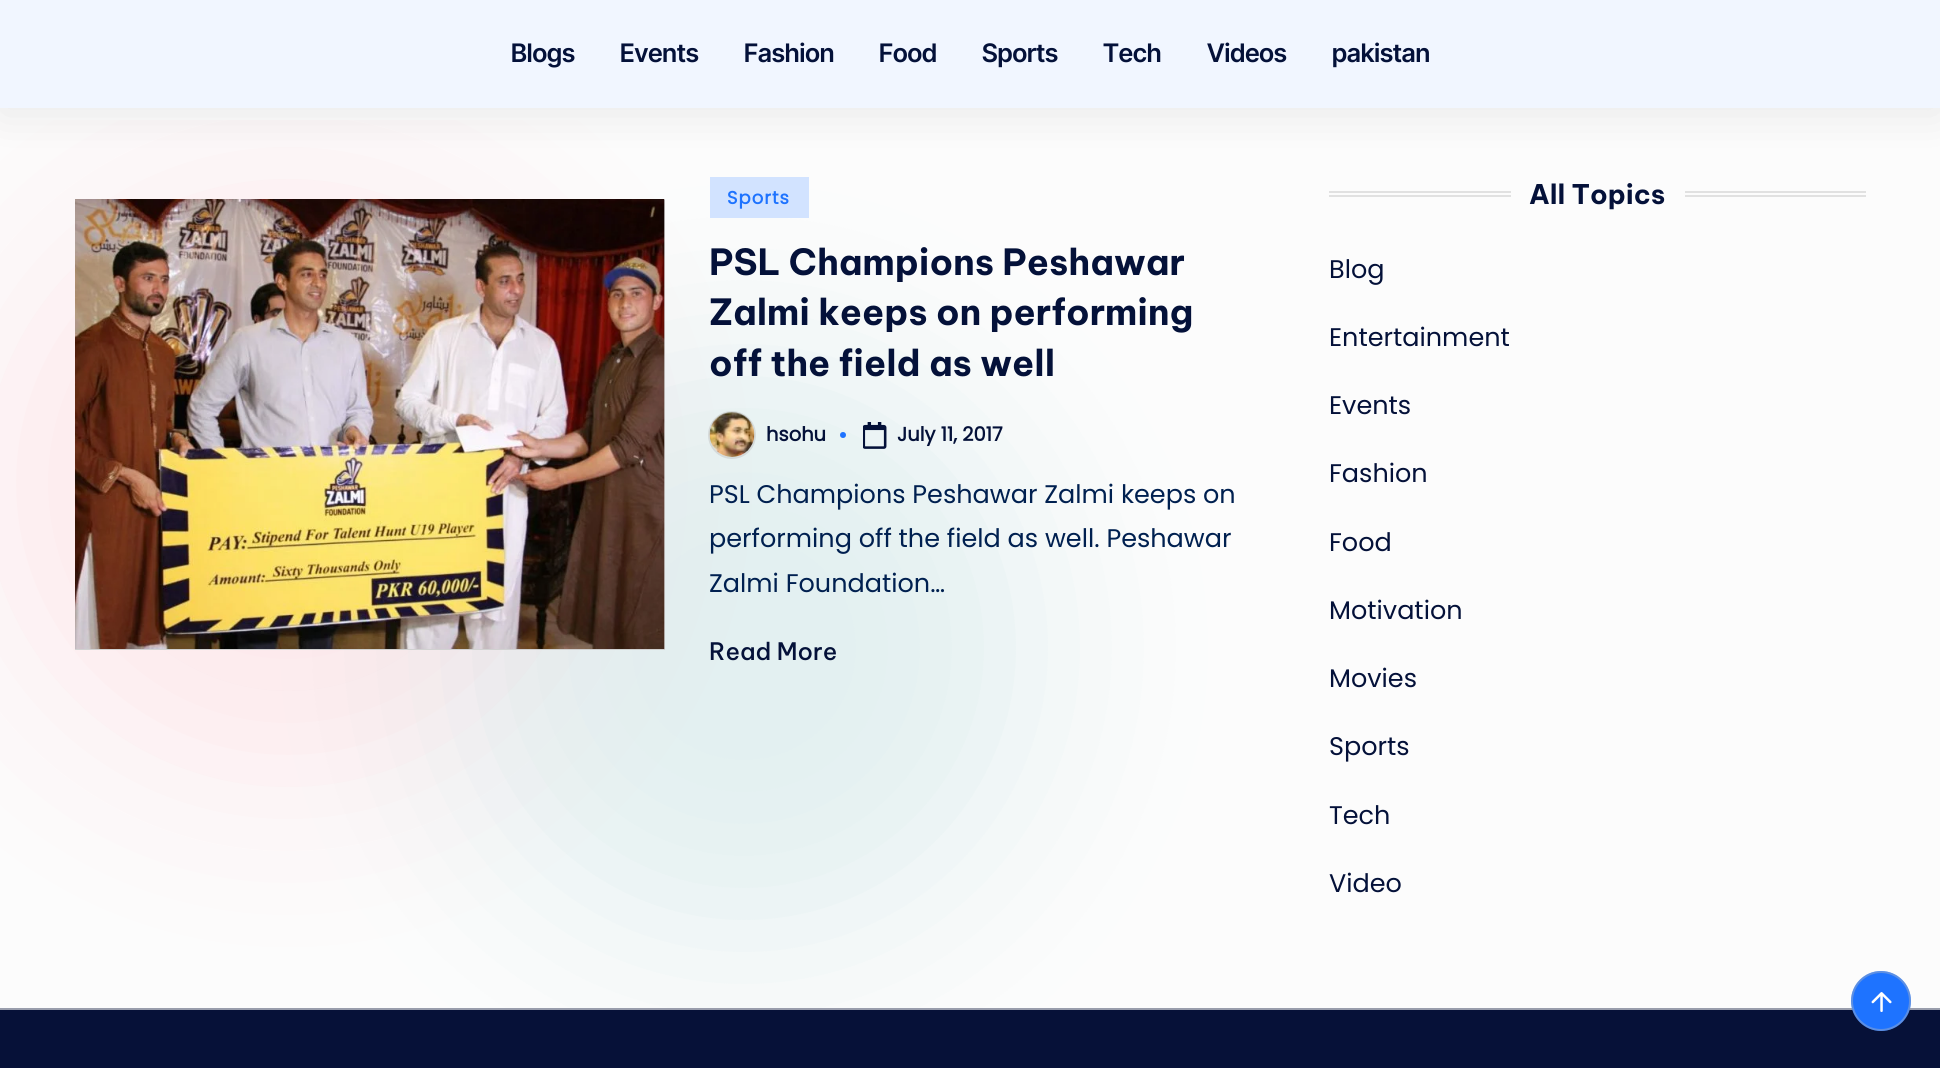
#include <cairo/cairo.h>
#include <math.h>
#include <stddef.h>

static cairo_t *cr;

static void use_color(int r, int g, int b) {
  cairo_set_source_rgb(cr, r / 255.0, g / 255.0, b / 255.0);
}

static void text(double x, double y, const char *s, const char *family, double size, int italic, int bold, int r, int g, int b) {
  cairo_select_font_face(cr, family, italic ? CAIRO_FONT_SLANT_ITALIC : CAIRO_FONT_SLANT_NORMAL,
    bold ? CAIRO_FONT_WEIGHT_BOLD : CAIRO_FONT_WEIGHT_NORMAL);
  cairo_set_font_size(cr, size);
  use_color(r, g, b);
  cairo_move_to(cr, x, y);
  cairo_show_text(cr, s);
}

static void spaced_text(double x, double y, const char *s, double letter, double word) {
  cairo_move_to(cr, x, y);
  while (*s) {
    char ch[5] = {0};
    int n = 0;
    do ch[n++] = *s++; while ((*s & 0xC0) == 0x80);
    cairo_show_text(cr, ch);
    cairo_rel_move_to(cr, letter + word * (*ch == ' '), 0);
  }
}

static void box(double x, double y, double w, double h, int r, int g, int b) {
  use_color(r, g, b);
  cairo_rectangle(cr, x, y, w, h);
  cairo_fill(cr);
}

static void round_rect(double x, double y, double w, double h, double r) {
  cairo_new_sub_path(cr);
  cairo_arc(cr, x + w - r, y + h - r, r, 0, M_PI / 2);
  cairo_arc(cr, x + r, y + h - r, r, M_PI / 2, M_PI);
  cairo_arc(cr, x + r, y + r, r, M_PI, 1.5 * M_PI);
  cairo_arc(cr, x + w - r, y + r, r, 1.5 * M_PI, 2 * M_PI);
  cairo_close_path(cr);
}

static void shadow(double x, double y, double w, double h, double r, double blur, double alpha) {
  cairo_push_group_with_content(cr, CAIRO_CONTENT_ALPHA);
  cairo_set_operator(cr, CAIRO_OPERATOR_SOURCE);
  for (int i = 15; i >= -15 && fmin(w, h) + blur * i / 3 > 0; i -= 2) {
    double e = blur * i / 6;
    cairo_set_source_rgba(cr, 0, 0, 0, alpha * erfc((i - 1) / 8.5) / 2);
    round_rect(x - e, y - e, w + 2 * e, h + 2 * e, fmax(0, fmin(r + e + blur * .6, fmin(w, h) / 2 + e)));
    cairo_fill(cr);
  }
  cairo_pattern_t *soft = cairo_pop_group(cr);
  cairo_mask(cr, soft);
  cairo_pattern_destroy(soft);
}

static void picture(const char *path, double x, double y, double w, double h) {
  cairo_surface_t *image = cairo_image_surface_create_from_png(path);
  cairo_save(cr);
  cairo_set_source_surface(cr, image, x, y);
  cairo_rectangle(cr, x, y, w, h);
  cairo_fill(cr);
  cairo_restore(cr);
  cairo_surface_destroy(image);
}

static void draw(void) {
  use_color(252, 252, 252);
  cairo_paint(cr);
  cairo_save(cr);
  cairo_rectangle(cr, 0, 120, 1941, 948);
  cairo_clip(cr);
  use_color(253, 232, 235);
  shadow(0, 195, 576, 576, 288, 96, 1);
  cairo_restore(cr);
  use_color(4, 134, 139);
  shadow(456, 360, 576, 576, 288, 96, 0.1);
  box(710, 177, 99, 41, 210, 227, 255);
  use_color(0, 0, 0);
  shadow(0, 6, 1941, 108, 0, 22.5, 0.08);
  box(0, 0, 1940, 108, 241, 246, 255);
  box(75, 200, 590, 450, 209, 209, 209);
  picture("img_01.png", 75, 199, 590, 450);
  picture("img_02.png", 709, 412, 46, 45);
  cairo_arc(cr, 732, 435, 23, 0, 2 * M_PI);
  cairo_set_source_rgba(cr, 0.725, 0.725, 0.725, 0.4);
  cairo_stroke(cr);
  use_color(30, 115, 255);
  cairo_arc(cr, 843, 435, 3, 0, 2 * M_PI);
  cairo_fill(cr);
  picture("img_03.png", 863, 422, 24, 27);
  box(1329, 191, 182, 2, 225, 225, 225);
  box(1329, 195, 182, 2, 225, 225, 225);
  box(1685, 191, 181, 2, 225, 225, 225);
  box(1685, 195, 181, 2, 225, 225, 225);
  box(0, 1010, 1940, 58, 6, 17, 56);
  box(0, 1008, 1940, 2, 153, 157, 172);
  use_color(30, 115, 255);
  cairo_arc(cr, 1881, 1001, 30, 0, 2 * M_PI);
  cairo_fill(cr);
  cairo_arc(cr, 1881, 1001, 29, 0, 2 * M_PI);
  cairo_set_source_rgba(cr, 0.725, 0.725, 0.725, 0.4);
  cairo_stroke(cr);
  picture("img_04.png", 1871, 992, 21, 20);
  text(511, 62, "Blogs", "Inter Tight SemiBold", 25.5, 0, 0, 4, 17, 57);
  text(620, 62, "Events", "Inter Tight SemiBold", 25.5, 0, 0, 4, 17, 57);
  text(744, 62, "Fashion", "Inter Tight SemiBold", 25.5, 0, 0, 4, 17, 57);
  text(879, 62, "Food", "Inter Tight SemiBold", 25.5, 0, 0, 4, 17, 57);
  text(982, 62, "Sports", "Inter Tight SemiBold", 25.5, 0, 0, 4, 17, 57);
  text(1103, 62, "Tech", "Inter Tight SemiBold", 25.5, 0, 0, 4, 17, 57);
  text(1207, 62, "Videos", "Inter Tight SemiBold", 25.5, 0, 0, 4, 17, 57);
  text(1332, 62, "pakistan", "Inter Tight SemiBold", 25.5, 0, 0, 4, 17, 57);
  cairo_select_font_face(cr, "Poppins", CAIRO_FONT_SLANT_NORMAL, CAIRO_FONT_WEIGHT_BOLD);
  cairo_set_font_size(cr, 18);
  use_color(30, 115, 255);
  spaced_text(727, 204, "Sports", 1, 0);
  text(709, 275, "PSL Champions Peshawar", "Be Vietnam Pro", 36, 0, 1, 4, 17, 57);
  text(709, 325, "Zalmi keeps on performing", "Be Vietnam Pro", 36, 0, 1, 4, 17, 57);
  text(709, 376, "off the field as well", "Be Vietnam Pro", 36, 0, 1, 4, 17, 57);
  text(766, 441, "hsohu", "Poppins", 19.5, 0, 1, 4, 17, 57);
  text(897, 441, "July 11, 2017", "Poppins", 19.5, 0, 1, 4, 17, 57);
  text(709, 503, "PSL Champions Peshawar Zalmi keeps on", "Poppins", 25.5, 0, 0, 0, 32, 80);
  text(709, 547, "performing off the field as well. Peshawar", "Poppins", 25.5, 0, 0, 0, 32, 80);
  text(709, 592, "Zalmi Foundation…", "Poppins", 25.5, 0, 0, 0, 32, 80);
  text(709, 660, "Read More", "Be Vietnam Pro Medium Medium", 24, 0, 0, 4, 17, 57);
  text(1529, 204, "All Topics", "Be Vietnam Pro", 27, 0, 1, 4, 17, 57);
  text(1329, 278, "Blog", "Poppins", 25.5, 0, 0, 4, 17, 57);
  text(1329, 346, "Entertainment", "Poppins", 25.5, 0, 0, 4, 17, 57);
  text(1329, 414, "Events", "Poppins", 25.5, 0, 0, 4, 17, 57);
  text(1329, 482, "Fashion", "Poppins", 25.5, 0, 0, 4, 17, 57);
  text(1329, 551, "Food", "Poppins", 25.5, 0, 0, 4, 17, 57);
  text(1329, 619, "Motivation", "Poppins", 25.5, 0, 0, 4, 17, 57);
  text(1329, 687, "Movies", "Poppins", 25.5, 0, 0, 4, 17, 57);
  text(1329, 755, "Sports", "Poppins", 25.5, 0, 0, 4, 17, 57);
  text(1329, 824, "Tech", "Poppins", 25.5, 0, 0, 4, 17, 57);
  text(1329, 892, "Video", "Poppins", 25.5, 0, 0, 4, 17, 57);
}

int main(void) {
  cairo_surface_t *surface = cairo_image_surface_create(CAIRO_FORMAT_RGB24, 1940, 1068);
  cr = cairo_create(surface);
  cairo_font_options_t *options = cairo_font_options_create();
  cairo_font_options_set_hint_metrics(options, CAIRO_HINT_METRICS_OFF);
  cairo_font_options_set_hint_style(options, CAIRO_HINT_STYLE_NONE);
  cairo_set_font_options(cr, options);
  cairo_set_miter_limit(cr, 4);
  draw();
  cairo_surface_write_to_png(surface, "out.png");
  cairo_font_options_destroy(options);
  cairo_destroy(cr);
  cairo_surface_destroy(surface);
  return 0;
}
